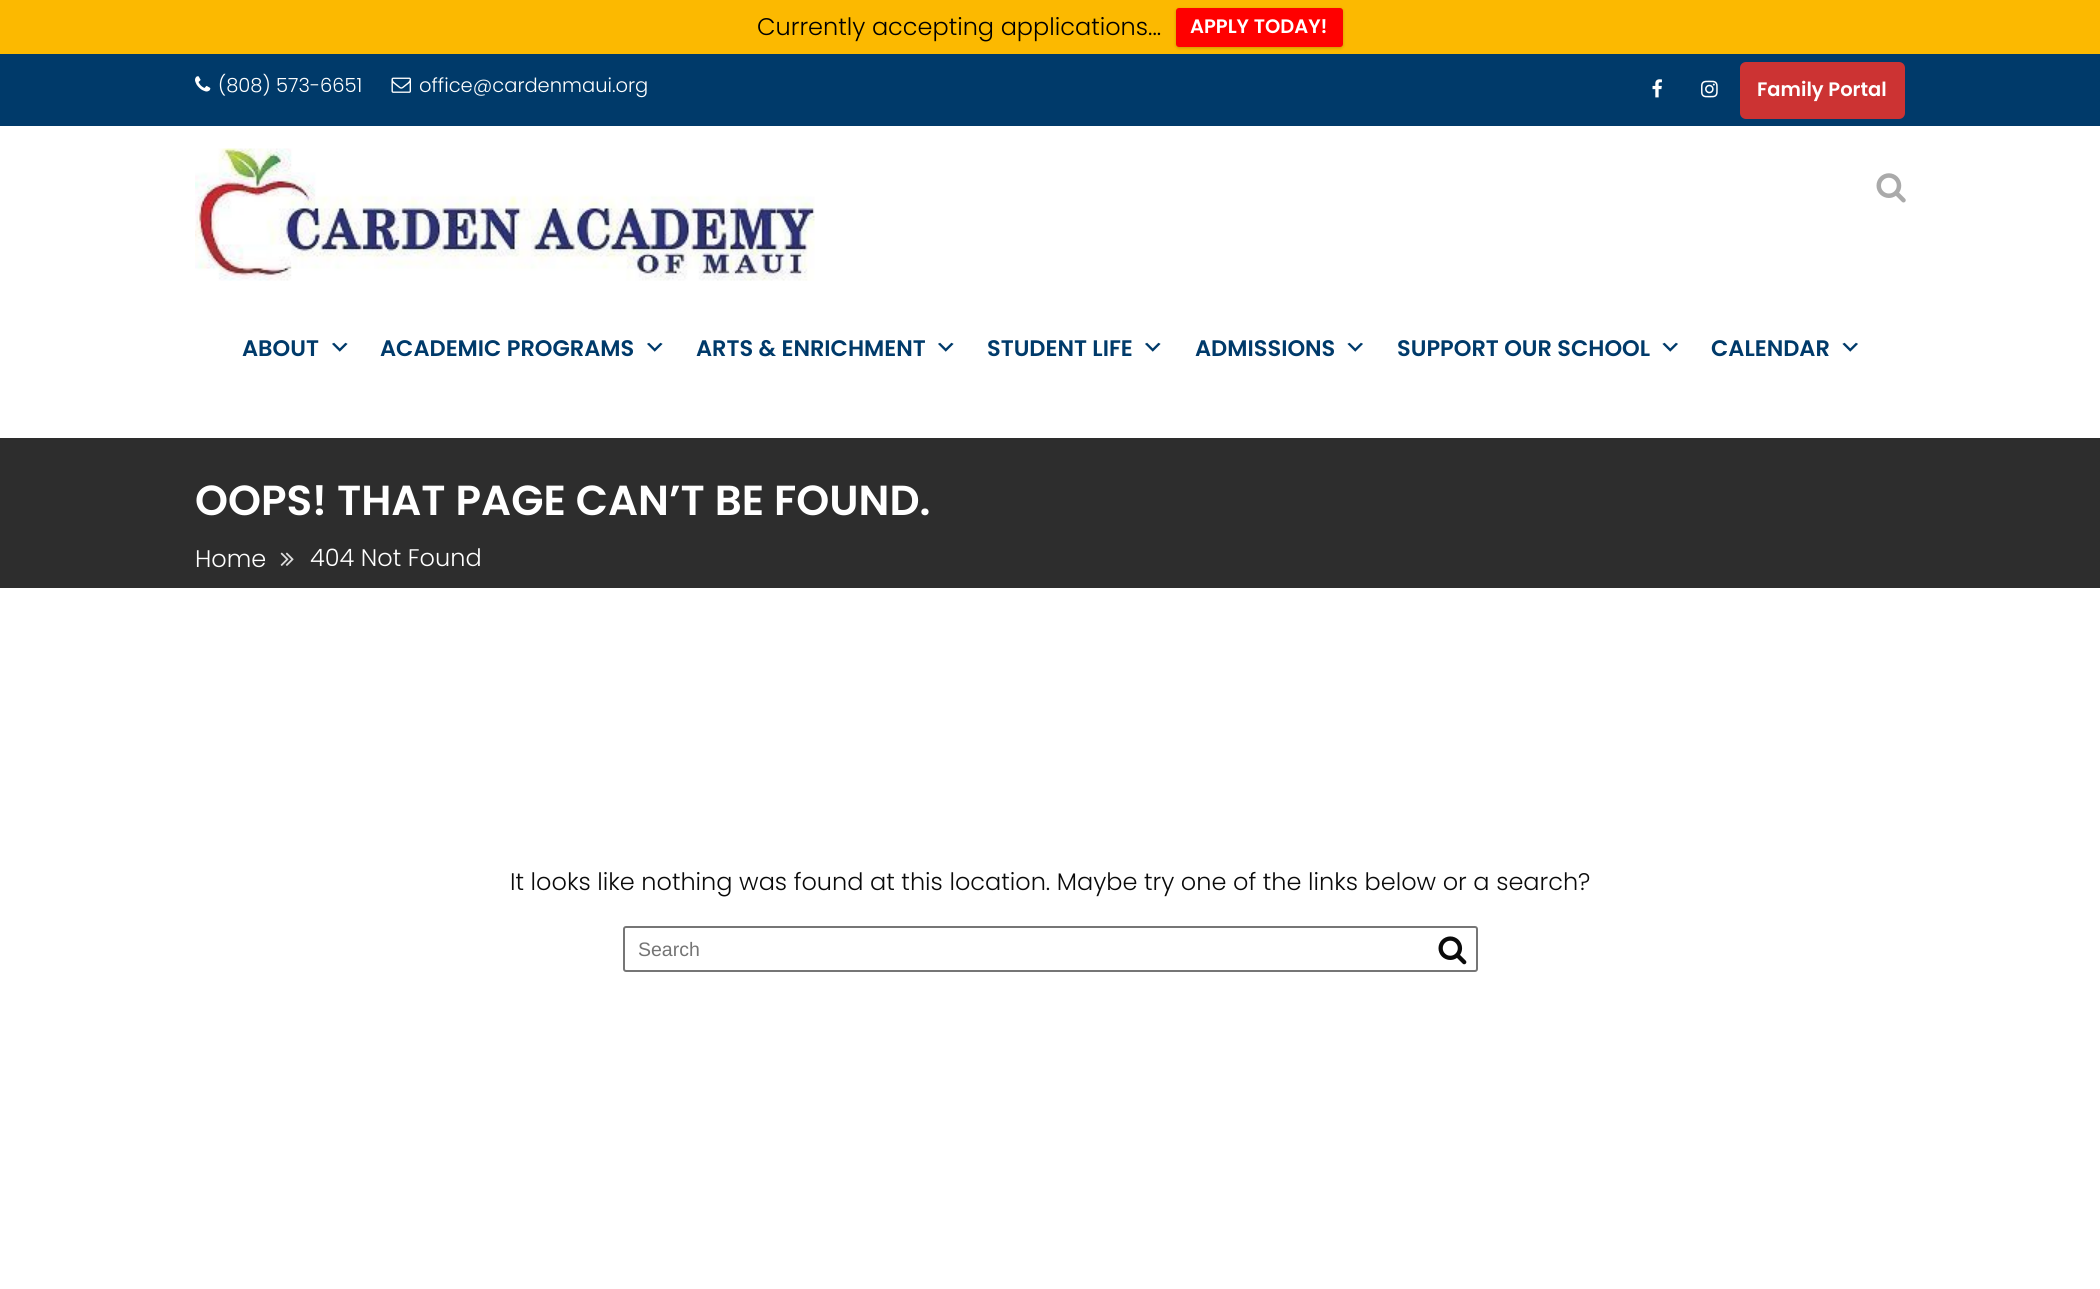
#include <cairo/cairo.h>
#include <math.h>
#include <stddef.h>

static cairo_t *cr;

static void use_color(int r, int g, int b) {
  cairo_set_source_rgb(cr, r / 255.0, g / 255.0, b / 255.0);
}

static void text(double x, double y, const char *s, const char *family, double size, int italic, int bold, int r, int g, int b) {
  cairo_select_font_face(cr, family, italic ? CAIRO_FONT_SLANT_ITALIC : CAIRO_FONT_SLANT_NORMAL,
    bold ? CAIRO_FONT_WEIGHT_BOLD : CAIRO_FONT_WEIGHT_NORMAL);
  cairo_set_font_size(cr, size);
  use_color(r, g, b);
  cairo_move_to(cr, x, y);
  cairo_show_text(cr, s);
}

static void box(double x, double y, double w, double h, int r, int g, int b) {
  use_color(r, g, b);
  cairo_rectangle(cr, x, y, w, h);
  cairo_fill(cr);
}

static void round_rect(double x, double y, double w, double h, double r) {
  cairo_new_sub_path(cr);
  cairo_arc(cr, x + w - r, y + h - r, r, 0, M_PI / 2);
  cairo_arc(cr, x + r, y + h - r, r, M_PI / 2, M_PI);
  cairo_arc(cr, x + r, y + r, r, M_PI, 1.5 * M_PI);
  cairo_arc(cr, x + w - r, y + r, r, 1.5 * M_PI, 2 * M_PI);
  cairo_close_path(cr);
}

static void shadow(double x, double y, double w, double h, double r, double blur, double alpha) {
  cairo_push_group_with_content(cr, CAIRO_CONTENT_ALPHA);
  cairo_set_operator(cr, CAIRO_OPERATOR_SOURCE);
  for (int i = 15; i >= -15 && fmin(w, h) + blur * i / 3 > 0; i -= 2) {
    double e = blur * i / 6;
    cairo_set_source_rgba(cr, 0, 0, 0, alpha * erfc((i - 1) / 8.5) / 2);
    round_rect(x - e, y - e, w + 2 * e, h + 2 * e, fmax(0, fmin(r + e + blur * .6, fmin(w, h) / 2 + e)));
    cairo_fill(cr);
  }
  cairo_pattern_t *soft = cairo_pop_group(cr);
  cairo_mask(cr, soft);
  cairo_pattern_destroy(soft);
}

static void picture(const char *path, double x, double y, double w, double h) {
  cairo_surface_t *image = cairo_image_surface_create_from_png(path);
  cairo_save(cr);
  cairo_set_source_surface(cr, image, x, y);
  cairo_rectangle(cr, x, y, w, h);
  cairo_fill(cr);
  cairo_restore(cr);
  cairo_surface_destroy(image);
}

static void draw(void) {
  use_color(255, 255, 255);
  cairo_paint(cr);
  box(0, 0, 2100, 54, 252, 185, 0);
  use_color(0, 0, 0);
  shadow(1176, 9, 167, 39, 3, 1.5, 0.2);
  use_color(255, 0, 0);
  round_rect(1176, 8, 167, 39, 3);
  cairo_fill(cr);
  box(0, 54, 2100, 72, 0, 58, 106);
  picture("img_01.png", 195, 76, 16, 16);
  picture("img_02.png", 391, 77, 20, 16);
  picture("img_03.png", 1652, 79, 10, 19);
  picture("img_04.png", 1701, 80, 17, 18);
  use_color(204, 51, 51);
  round_rect(1741.5, 63.5, 162, 54, 4.5);
  cairo_fill_preserve(cr);
  cairo_set_line_width(cr, 3);
  cairo_stroke(cr);
  picture("img_05.png", 195, 148, 620, 133);
  picture("img_06.png", 1876, 173, 30, 30);
  picture("img_07.png", 332, 342, 16, 10);
  picture("img_07.png", 647, 342, 16, 10);
  picture("img_07.png", 938, 342, 16, 10);
  picture("img_07.png", 1145, 342, 16, 10);
  picture("img_08.png", 1347, 342, 16, 10);
  picture("img_08.png", 1662, 342, 16, 10);
  picture("img_08.png", 1842, 342, 16, 10);
  box(0, 438, 2100, 150, 45, 45, 45);
  picture("img_09.png", 280, 552, 14, 14);
  round_rect(624, 927, 853, 44, 2);
  use_color(118, 118, 118);
  cairo_set_line_width(cr, 2);
  cairo_stroke(cr);
  picture("img_10.png", 1438, 936, 29, 29);
  text(757, 35, "Currently accepting applications...", "Poppins Light", 24, 0, 0, 0, 0, 0);
  text(1190, 33, "APPLY TODAY!", "Poppins SemiBold", 19.5, 0, 0, 255, 255, 255);
  text(218, 92, "(808) 573-6651", "Poppins Light", 19.5, 0, 0, 255, 255, 255);
  text(419, 92, "office@cardenmaui.org", "Poppins Light", 19.5, 0, 0, 255, 255, 255);
  text(1757, 96, "Family Portal", "Poppins SemiBold", 19.5, 0, 0, 255, 255, 255);
  text(242, 356, "ABOUT", "Poppins SemiBold", 22.5, 0, 0, 0, 58, 106);
  text(380, 356, "ACADEMIC PROGRAMS", "Poppins SemiBold", 22.5, 0, 0, 0, 58, 106);
  text(696, 356, "ARTS & ENRICHMENT", "Poppins SemiBold", 22.5, 0, 0, 0, 58, 106);
  text(987, 356, "STUDENT LIFE", "Poppins SemiBold", 22.5, 0, 0, 0, 58, 106);
  text(1195, 356, "ADMISSIONS", "Poppins SemiBold", 22.5, 0, 0, 0, 58, 106);
  text(1397, 356, "SUPPORT OUR SCHOOL", "Poppins SemiBold", 22.5, 0, 0, 0, 58, 106);
  text(1711, 356, "CALENDAR", "Poppins SemiBold", 22.5, 0, 0, 0, 58, 106);
  text(195, 515, "OOPS! THAT PAGE CAN’T BE FOUND.", "Poppins SemiBold", 42, 0, 0, 255, 255, 255);
  text(195, 567, "Home", "Poppins Light", 24, 0, 0, 255, 255, 255);
  text(310, 566, "404 Not Found", "Poppins Light", 24, 0, 0, 255, 255, 255);
  text(510, 890, "It looks like nothing was found at this location. Maybe try one of the links below or a search?", "Poppins Light", 24, 0, 0, 10, 10, 10);
  text(638, 956, "Search", "Liberation Sans", 19.5, 0, 0, 117, 117, 117);
}

int main(void) {
  cairo_surface_t *surface = cairo_image_surface_create(CAIRO_FORMAT_RGB24, 2100, 1289);
  cr = cairo_create(surface);
  cairo_font_options_t *options = cairo_font_options_create();
  cairo_font_options_set_hint_metrics(options, CAIRO_HINT_METRICS_OFF);
  cairo_font_options_set_hint_style(options, CAIRO_HINT_STYLE_NONE);
  cairo_set_font_options(cr, options);
  cairo_set_miter_limit(cr, 4);
  draw();
  cairo_surface_write_to_png(surface, "out.png");
  cairo_font_options_destroy(options);
  cairo_destroy(cr);
  cairo_surface_destroy(surface);
  return 0;
}
